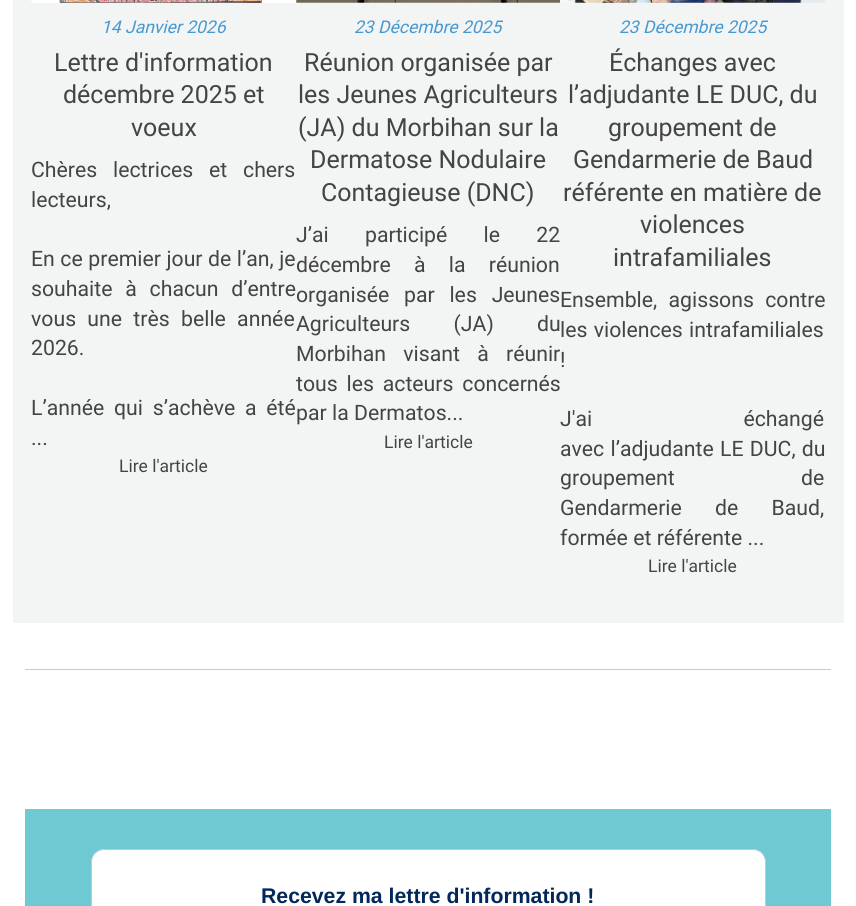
#include <cairo/cairo.h>
#include <math.h>
#include <stddef.h>

static cairo_t *cr;

static void use_color(int r, int g, int b) {
  cairo_set_source_rgb(cr, r / 255.0, g / 255.0, b / 255.0);
}

static void text(double x, double y, const char *s, const char *family, double size, int italic, int bold, int r, int g, int b) {
  cairo_select_font_face(cr, family, italic ? CAIRO_FONT_SLANT_ITALIC : CAIRO_FONT_SLANT_NORMAL,
    bold ? CAIRO_FONT_WEIGHT_BOLD : CAIRO_FONT_WEIGHT_NORMAL);
  cairo_set_font_size(cr, size);
  use_color(r, g, b);
  cairo_move_to(cr, x, y);
  cairo_show_text(cr, s);
}

static void spaced_text(double x, double y, const char *s, double letter, double word) {
  cairo_move_to(cr, x, y);
  while (*s) {
    char ch[5] = {0};
    int n = 0;
    do ch[n++] = *s++; while ((*s & 0xC0) == 0x80);
    cairo_show_text(cr, ch);
    cairo_rel_move_to(cr, letter + word * (*ch == ' '), 0);
  }
}

static void box(double x, double y, double w, double h, int r, int g, int b) {
  use_color(r, g, b);
  cairo_rectangle(cr, x, y, w, h);
  cairo_fill(cr);
}

static void round_rect(double x, double y, double w, double h, double r) {
  cairo_new_sub_path(cr);
  cairo_arc(cr, x + w - r, y + h - r, r, 0, M_PI / 2);
  cairo_arc(cr, x + r, y + h - r, r, M_PI / 2, M_PI);
  cairo_arc(cr, x + r, y + r, r, M_PI, 1.5 * M_PI);
  cairo_arc(cr, x + w - r, y + r, r, 1.5 * M_PI, 2 * M_PI);
  cairo_close_path(cr);
}

static void picture(const char *path, double x, double y, double w, double h) {
  cairo_surface_t *image = cairo_image_surface_create_from_png(path);
  cairo_save(cr);
  cairo_set_source_surface(cr, image, x, y);
  cairo_rectangle(cr, x, y, w, h);
  cairo_fill(cr);
  cairo_restore(cr);
  cairo_surface_destroy(image);
}

static void draw(void) {
  use_color(255, 255, 255);
  cairo_paint(cr);
  box(13, 0, 831, 623, 243, 244, 244);
  box(31, 0, 529, 3, 250, 250, 250);
  picture("img_01.png", 32, 0, 264, 3);
  picture("img_02.png", 296, 0, 264, 3);
  picture("img_03.png", 560, 0, 265, 3);
  box(25, 669, 806, 1, 203, 203, 203);
  box(25, 809, 806, 97, 111, 201, 211);
  use_color(255, 255, 255);
  round_rect(91.5, 849.5, 674, 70, 12.5);
  cairo_fill_preserve(cr);
  use_color(192, 204, 217);
  cairo_set_line_width(cr, 1);
  cairo_stroke(cr);
  text(101, 33, "14 Janvier 2026", "Roboto", 17.5, 1, 0, 69, 153, 209);
  text(54, 71, "Lettre d'information", "Roboto", 25, 0, 0, 68, 68, 68);
  text(63, 103, "décembre 2025 et", "Roboto", 25, 0, 0, 68, 68, 68);
  text(131, 136, "voeux", "Roboto", 25, 0, 0, 68, 68, 68);
  cairo_set_font_size(cr, 21.25);
  spaced_text(31, 177, "Chères lectrices et chers", 0, 10.5);
  text(31, 207, "lecteurs,", "Roboto", 21.25, 0, 0, 68, 68, 68);
  spaced_text(31, 266, "En ce premier jour de l’an, je", 0, 0.25);
  spaced_text(31, 296, "souhaite à chacun d’entre", 0, 7.5);
  spaced_text(31, 326, "vous une très belle année", 0, 6);
  text(31, 355, "2026.", "Roboto", 21.25, 0, 0, 68, 68, 68);
  spaced_text(31, 415, "L’année qui s’achève a été", 0, 4.5);
  text(31, 445, "...", "Roboto", 21.25, 0, 0, 68, 68, 68);
  text(119, 472, "Lire l'article", "Roboto", 17.5, 0, 0, 68, 68, 68);
  text(354, 33, "23 Décembre 2025", "Roboto", 17.5, 1, 0, 69, 153, 209);
  text(304, 71, "Réunion organisée par", "Roboto", 25, 0, 0, 68, 68, 68);
  text(298, 103, "les Jeunes Agriculteurs", "Roboto", 25, 0, 0, 68, 68, 68);
  text(298, 136, "(JA) du Morbihan sur la", "Roboto", 25, 0, 0, 68, 68, 68);
  text(310, 168, "Dermatose Nodulaire", "Roboto", 25, 0, 0, 68, 68, 68);
  text(321, 201, "Contagieuse (DNC)", "Roboto", 25, 0, 0, 68, 68, 68);
  cairo_set_font_size(cr, 21.25);
  spaced_text(296, 242, "J’ai participé le 22", 0, 31);
  spaced_text(296, 272, "décembre à la réunion", 0, 18);
  spaced_text(296, 302, "organisée par les Jeunes", 0, 9.5);
  spaced_text(296, 331, "Agriculteurs (JA) du", 0, 38);
  spaced_text(296, 361, "Morbihan visant à réunir", 0, 12);
  spaced_text(296, 391, "tous les acteurs concernés", 0, 3.5);
  text(296, 420, "par la Dermatos...", "Roboto", 21.25, 0, 0, 68, 68, 68);
  text(384, 448, "Lire l'article", "Roboto", 17.5, 0, 0, 68, 68, 68);
  text(619, 33, "23 Décembre 2025", "Roboto", 17.5, 1, 0, 69, 153, 209);
  text(609, 71, "Échanges avec", "Roboto", 25, 0, 0, 68, 68, 68);
  text(568, 103, "l’adjudante LE DUC, du", "Roboto", 25, 0, 0, 68, 68, 68);
  text(608, 136, "groupement de", "Roboto", 25, 0, 0, 68, 68, 68);
  text(573, 168, "Gendarmerie de Baud", "Roboto", 25, 0, 0, 68, 68, 68);
  text(563, 201, "référente en matière de", "Roboto", 25, 0, 0, 68, 68, 68);
  text(640, 233, "violences", "Roboto", 25, 0, 0, 68, 68, 68);
  text(613, 266, "intrafamiliales", "Roboto", 25, 0, 0, 68, 68, 68);
  cairo_set_font_size(cr, 21.25);
  spaced_text(560, 307, "Ensemble, agissons contre", 0, 6);
  spaced_text(560, 337, "les violences intrafamiliales", 0, 1);
  text(560, 367, "!", "Roboto", 21.25, 0, 0, 68, 68, 68);
  spaced_text(560, 426, "J'ai échangé", 0, 146);
  spaced_text(560, 456, "avec l’adjudante LE DUC, du", 0, 1);
  spaced_text(560, 485, "groupement de", 0, 121);
  spaced_text(560, 515, "Gendarmerie de Baud,", 0, 28);
  text(560, 545, "formée et référente ...", "Roboto", 21.25, 0, 0, 68, 68, 68);
  text(648, 572, "Lire l'article", "Roboto", 17.5, 0, 0, 68, 68, 68);
  text(261, 903, "Recevez ma lettre d'information !", "Liberation Sans", 21.25, 0, 1, 2, 40, 91);
}

int main(void) {
  cairo_surface_t *surface = cairo_image_surface_create(CAIRO_FORMAT_RGB24, 856, 906);
  cr = cairo_create(surface);
  cairo_font_options_t *options = cairo_font_options_create();
  cairo_font_options_set_hint_metrics(options, CAIRO_HINT_METRICS_OFF);
  cairo_font_options_set_hint_style(options, CAIRO_HINT_STYLE_NONE);
  cairo_set_font_options(cr, options);
  cairo_set_miter_limit(cr, 4);
  draw();
  cairo_surface_write_to_png(surface, "out.png");
  cairo_font_options_destroy(options);
  cairo_destroy(cr);
  cairo_surface_destroy(surface);
  return 0;
}
